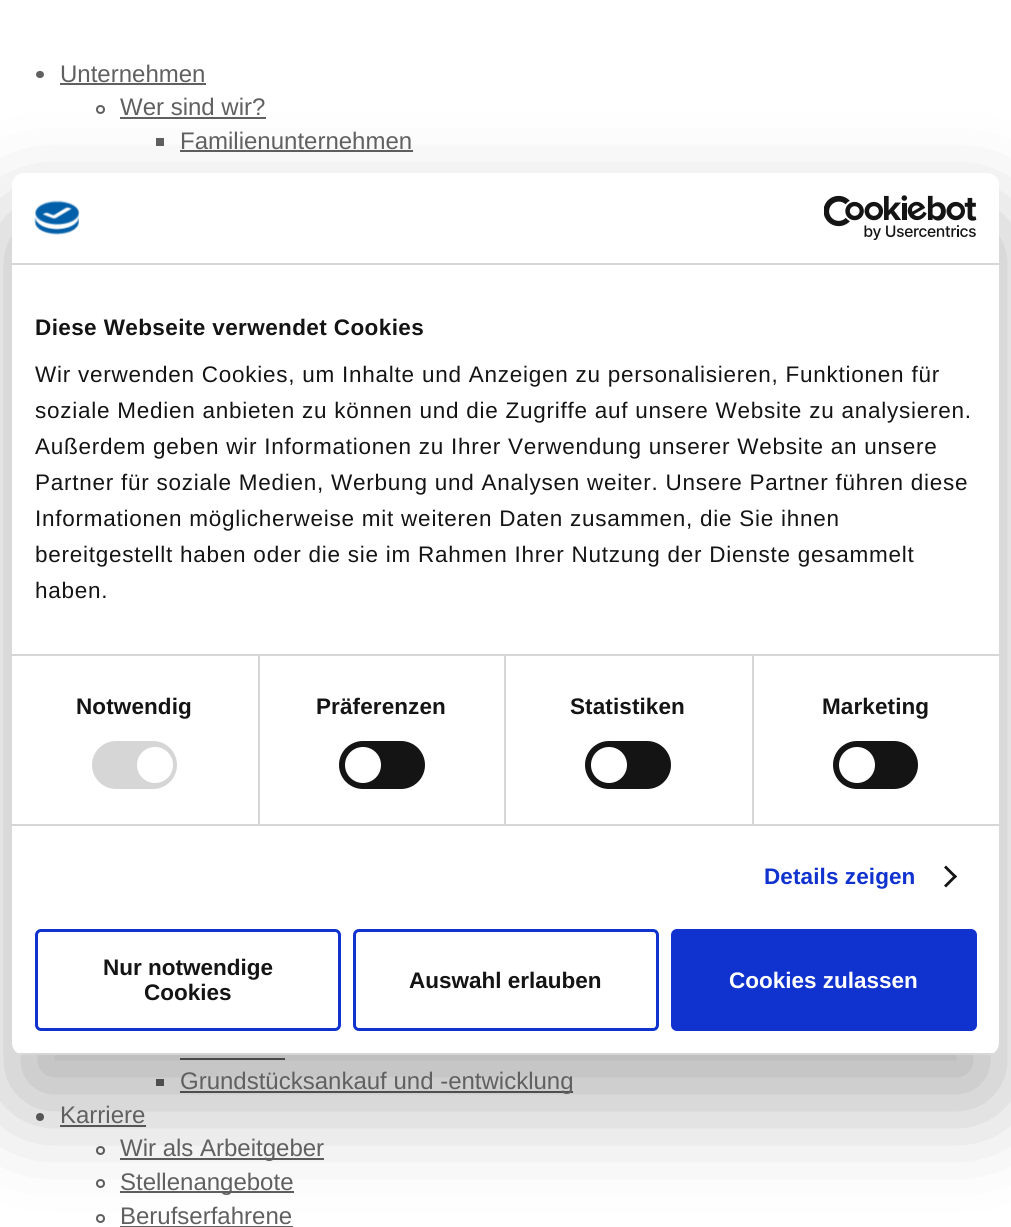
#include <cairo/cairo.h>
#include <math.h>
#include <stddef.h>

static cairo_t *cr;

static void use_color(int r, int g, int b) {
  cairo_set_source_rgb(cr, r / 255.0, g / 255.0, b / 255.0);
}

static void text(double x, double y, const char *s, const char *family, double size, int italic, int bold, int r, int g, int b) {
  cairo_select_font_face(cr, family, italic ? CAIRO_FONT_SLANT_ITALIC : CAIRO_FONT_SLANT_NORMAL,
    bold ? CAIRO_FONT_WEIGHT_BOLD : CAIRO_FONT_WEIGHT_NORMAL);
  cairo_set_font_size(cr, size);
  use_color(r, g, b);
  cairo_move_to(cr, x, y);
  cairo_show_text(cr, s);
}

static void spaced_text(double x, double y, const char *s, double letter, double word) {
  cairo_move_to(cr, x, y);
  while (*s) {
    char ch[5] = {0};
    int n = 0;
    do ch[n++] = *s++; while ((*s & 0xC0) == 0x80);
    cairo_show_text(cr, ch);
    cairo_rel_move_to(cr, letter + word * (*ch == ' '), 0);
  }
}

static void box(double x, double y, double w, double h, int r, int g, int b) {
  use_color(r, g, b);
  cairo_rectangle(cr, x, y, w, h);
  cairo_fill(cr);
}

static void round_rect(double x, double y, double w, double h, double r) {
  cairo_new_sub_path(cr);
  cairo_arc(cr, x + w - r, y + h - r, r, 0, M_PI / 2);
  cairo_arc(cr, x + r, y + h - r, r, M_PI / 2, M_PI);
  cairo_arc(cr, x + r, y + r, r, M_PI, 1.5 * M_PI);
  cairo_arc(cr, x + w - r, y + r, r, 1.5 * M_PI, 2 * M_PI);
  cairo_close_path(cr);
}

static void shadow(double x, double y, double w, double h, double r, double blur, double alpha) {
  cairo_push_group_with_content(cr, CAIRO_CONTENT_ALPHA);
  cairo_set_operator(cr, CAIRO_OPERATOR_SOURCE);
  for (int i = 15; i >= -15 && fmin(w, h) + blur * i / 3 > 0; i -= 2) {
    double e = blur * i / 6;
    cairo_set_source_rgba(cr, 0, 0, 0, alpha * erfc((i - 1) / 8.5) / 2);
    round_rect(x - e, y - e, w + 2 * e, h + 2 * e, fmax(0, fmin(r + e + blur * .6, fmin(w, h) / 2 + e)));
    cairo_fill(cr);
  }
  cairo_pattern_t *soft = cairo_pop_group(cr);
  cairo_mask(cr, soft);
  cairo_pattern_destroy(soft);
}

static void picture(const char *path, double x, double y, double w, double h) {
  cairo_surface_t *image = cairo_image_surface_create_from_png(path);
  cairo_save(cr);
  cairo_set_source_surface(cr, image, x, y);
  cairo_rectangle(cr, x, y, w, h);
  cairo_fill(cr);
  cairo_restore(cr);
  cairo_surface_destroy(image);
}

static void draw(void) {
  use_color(255, 255, 255);
  cairo_paint(cr);
  use_color(96, 96, 96);
  round_rect(36, 71, 8, 7, 3.5);
  cairo_fill(cr);
  box(60, 83, 146, 2, 96, 96, 96);
  cairo_arc(cr, 100.5, 109.5, 3.5, 0, 2 * M_PI);
  cairo_stroke(cr);
  box(120, 117, 146, 2, 96, 96, 96);
  box(156, 138, 8, 8, 96, 96, 96);
  box(180, 150, 233, 2, 96, 96, 96);
  box(180, 1058, 105, 2, 96, 96, 96);
  box(156, 1079, 8, 7, 96, 96, 96);
  box(180, 1091, 393, 2, 96, 96, 96);
  cairo_arc(cr, 40, 1117, 4, 0, 2 * M_PI);
  cairo_fill(cr);
  box(60, 1125, 86, 2, 96, 96, 96);
  cairo_arc(cr, 100.5, 1150.5, 3.5, 0, 2 * M_PI);
  cairo_stroke(cr);
  box(120, 1158, 204, 2, 96, 96, 96);
  cairo_arc(cr, 100.5, 1183.5, 3.5, 0, 2 * M_PI);
  cairo_stroke(cr);
  box(120, 1191, 174, 2, 96, 96, 96);
  cairo_arc(cr, 100.5, 1218.5, 3.5, 0, 2 * M_PI);
  cairo_stroke(cr);
  box(120, 1226, 173, 1, 96, 96, 96);
  use_color(0, 0, 0);
  shadow(12, 221, 987, 882, 12, 51, 0.3);
  use_color(255, 255, 255);
  round_rect(12, 173, 987, 882, 12);
  cairo_fill(cr);
  box(12, 263, 987, 2, 214, 214, 214);
  picture("img_01.png", 34, 200, 46, 35);
  picture("img_02.png", 824, 195, 153, 45);
  box(12, 654, 987, 2, 214, 214, 214);
  box(12, 824, 987, 2, 214, 214, 214);
  box(258, 656, 2, 168, 214, 214, 214);
  round_rect(92, 741, 85, 48, 24);
  cairo_fill(cr);
  use_color(255, 255, 255);
  cairo_arc(cr, 155, 765, 18, 0, 2 * M_PI);
  cairo_fill(cr);
  box(504, 656, 2, 168, 214, 214, 214);
  use_color(20, 20, 20);
  round_rect(339, 741, 86, 48, 24);
  cairo_fill(cr);
  use_color(255, 255, 255);
  cairo_arc(cr, 363, 765, 18, 0, 2 * M_PI);
  cairo_fill(cr);
  box(752, 656, 2, 168, 214, 214, 214);
  use_color(20, 20, 20);
  round_rect(585, 741, 86, 48, 24);
  cairo_fill(cr);
  use_color(255, 255, 255);
  cairo_arc(cr, 609, 765, 18, 0, 2 * M_PI);
  cairo_fill(cr);
  use_color(20, 20, 20);
  round_rect(833, 741, 85, 48, 24);
  cairo_fill(cr);
  use_color(255, 255, 255);
  cairo_arc(cr, 857, 765, 18, 0, 2 * M_PI);
  cairo_fill(cr);
  use_color(20, 20, 20);
  cairo_new_path(cr);
  cairo_move_to(cr, 946, 865.5);
  cairo_line_to(cr, 957, 876.5);
  cairo_line_to(cr, 955, 878.5);
  cairo_line_to(cr, 944, 867.5);
  cairo_close_path(cr);
  cairo_fill(cr);
  cairo_new_path(cr);
  cairo_move_to(cr, 955, 874.5);
  cairo_line_to(cr, 957, 876.5);
  cairo_line_to(cr, 946, 887.5);
  cairo_line_to(cr, 944, 885.5);
  cairo_close_path(cr);
  cairo_fill(cr);
  cairo_save(cr);
  round_rect(12, 173, 987, 882, 12);
  cairo_clip(cr);
  box(12, 1053, 987, 2, 214, 214, 214);
  cairo_restore(cr);
  round_rect(36.5, 930.5, 303, 99, 4.5);
  use_color(16, 50, 207);
  cairo_set_line_width(cr, 3);
  cairo_stroke(cr);
  round_rect(354.5, 930.5, 303, 99, 4.5);
  cairo_stroke(cr);
  round_rect(672.5, 930.5, 303, 99, 4.5);
  cairo_fill_preserve(cr);
  cairo_stroke(cr);
  text(60, 82, "Unternehmen", "Liberation Sans", 24, 0, 0, 96, 96, 96);
  text(120, 115, "Wer sind wir?", "Liberation Sans", 24, 0, 0, 96, 96, 96);
  text(180, 149, "Familienunternehmen", "Liberation Sans", 24, 0, 0, 96, 96, 96);
  text(180, 1089, "Grundstücksankauf und -entwicklung", "Liberation Sans", 24, 0, 0, 96, 96, 96);
  text(60, 1123, "Karriere", "Liberation Sans", 24, 0, 0, 96, 96, 96);
  text(120, 1156, "Wir als Arbeitgeber", "Liberation Sans", 24, 0, 0, 96, 96, 96);
  text(120, 1190, "Stellenangebote", "Liberation Sans", 24, 0, 0, 96, 96, 96);
  text(120, 1224, "Berufserfahrene", "Liberation Sans", 24, 0, 0, 96, 96, 96);
  cairo_select_font_face(cr, "Liberation Sans", CAIRO_FONT_SLANT_NORMAL, CAIRO_FONT_WEIGHT_BOLD);
  cairo_set_font_size(cr, 22.5);
  use_color(20, 20, 20);
  spaced_text(35, 335, "Diese Webseite verwendet Cookies", 0.4, 0);
  cairo_select_font_face(cr, "Liberation Sans", CAIRO_FONT_SLANT_NORMAL, CAIRO_FONT_WEIGHT_NORMAL);
  spaced_text(35, 382, "Wir verwenden Cookies, um Inhalte und Anzeigen zu personalisieren, Funktionen für", 0.75, 0);
  spaced_text(35, 418, "soziale Medien anbieten zu können und die Zugriffe auf unsere Website zu analysieren.", 0.75, 0);
  spaced_text(35, 454, "Außerdem geben wir Informationen zu Ihrer Verwendung unserer Website an unsere", 0.75, 0);
  spaced_text(35, 490, "Partner für soziale Medien, Werbung und Analysen weiter. Unsere Partner führen diese", 0.75, 0);
  spaced_text(35, 526, "Informationen möglicherweise mit weiteren Daten zusammen, die Sie ihnen", 0.75, 0);
  spaced_text(35, 562, "bereitgestellt haben oder die sie im Rahmen Ihrer Nutzung der Dienste gesammelt", 0.75, 0);
  spaced_text(35, 598, "haben.", 0.75, 0);
  cairo_select_font_face(cr, "Liberation Sans", CAIRO_FONT_SLANT_NORMAL, CAIRO_FONT_WEIGHT_BOLD);
  spaced_text(76, 714, "Notwendig", 0.1, 0);
  spaced_text(316, 714, "Präferenzen", 0.1, 0);
  spaced_text(570, 714, "Statistiken", 0.1, 0);
  spaced_text(822, 714, "Marketing", 0.1, 0);
  use_color(16, 50, 207);
  spaced_text(764, 884, "Details zeigen", 0.1, 0);
  text(103, 975, "Nur notwendige", "Liberation Sans", 22.5, 0, 1, 20, 20, 20);
  text(144, 1000, "Cookies", "Liberation Sans", 22.5, 0, 1, 20, 20, 20);
  text(409, 988, "Auswahl erlauben", "Liberation Sans", 22.5, 0, 1, 20, 20, 20);
  text(729, 988, "Cookies zulassen", "Liberation Sans", 22.5, 0, 1, 255, 255, 255);
}

int main(void) {
  cairo_surface_t *surface = cairo_image_surface_create(CAIRO_FORMAT_RGB24, 1011, 1227);
  cr = cairo_create(surface);
  cairo_font_options_t *options = cairo_font_options_create();
  cairo_font_options_set_hint_metrics(options, CAIRO_HINT_METRICS_OFF);
  cairo_font_options_set_hint_style(options, CAIRO_HINT_STYLE_NONE);
  cairo_set_font_options(cr, options);
  cairo_set_miter_limit(cr, 4);
  draw();
  cairo_surface_write_to_png(surface, "out.png");
  cairo_font_options_destroy(options);
  cairo_destroy(cr);
  cairo_surface_destroy(surface);
  return 0;
}
